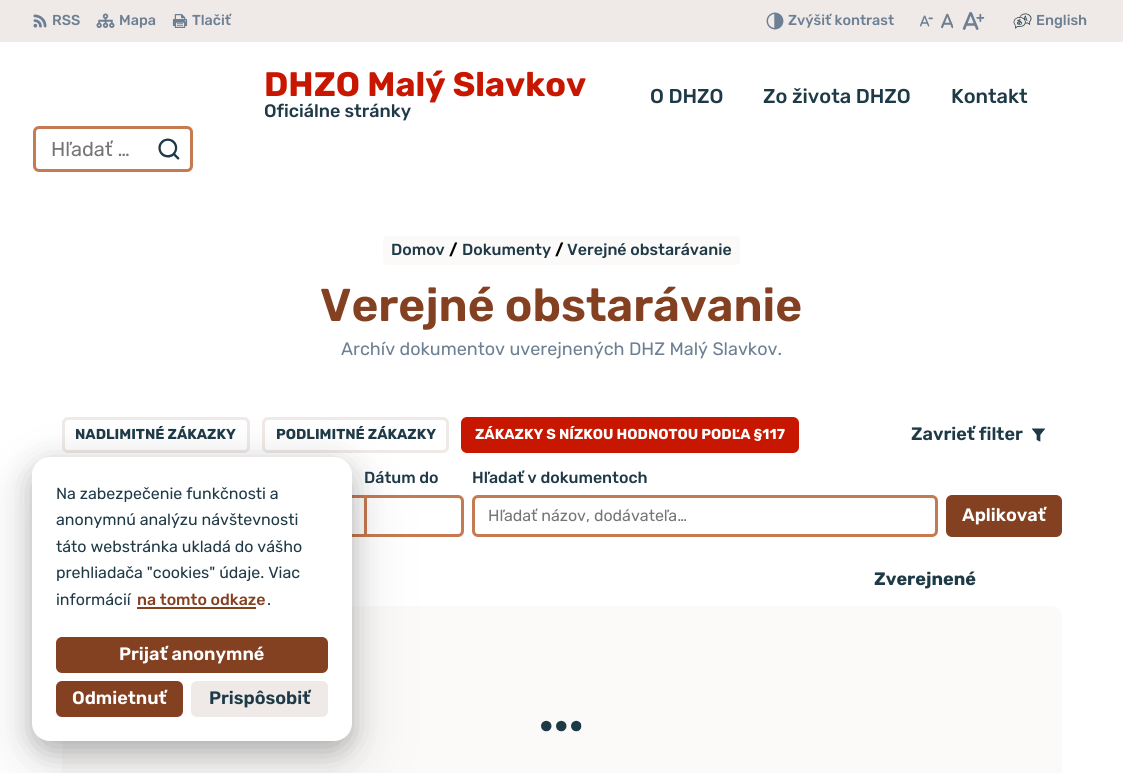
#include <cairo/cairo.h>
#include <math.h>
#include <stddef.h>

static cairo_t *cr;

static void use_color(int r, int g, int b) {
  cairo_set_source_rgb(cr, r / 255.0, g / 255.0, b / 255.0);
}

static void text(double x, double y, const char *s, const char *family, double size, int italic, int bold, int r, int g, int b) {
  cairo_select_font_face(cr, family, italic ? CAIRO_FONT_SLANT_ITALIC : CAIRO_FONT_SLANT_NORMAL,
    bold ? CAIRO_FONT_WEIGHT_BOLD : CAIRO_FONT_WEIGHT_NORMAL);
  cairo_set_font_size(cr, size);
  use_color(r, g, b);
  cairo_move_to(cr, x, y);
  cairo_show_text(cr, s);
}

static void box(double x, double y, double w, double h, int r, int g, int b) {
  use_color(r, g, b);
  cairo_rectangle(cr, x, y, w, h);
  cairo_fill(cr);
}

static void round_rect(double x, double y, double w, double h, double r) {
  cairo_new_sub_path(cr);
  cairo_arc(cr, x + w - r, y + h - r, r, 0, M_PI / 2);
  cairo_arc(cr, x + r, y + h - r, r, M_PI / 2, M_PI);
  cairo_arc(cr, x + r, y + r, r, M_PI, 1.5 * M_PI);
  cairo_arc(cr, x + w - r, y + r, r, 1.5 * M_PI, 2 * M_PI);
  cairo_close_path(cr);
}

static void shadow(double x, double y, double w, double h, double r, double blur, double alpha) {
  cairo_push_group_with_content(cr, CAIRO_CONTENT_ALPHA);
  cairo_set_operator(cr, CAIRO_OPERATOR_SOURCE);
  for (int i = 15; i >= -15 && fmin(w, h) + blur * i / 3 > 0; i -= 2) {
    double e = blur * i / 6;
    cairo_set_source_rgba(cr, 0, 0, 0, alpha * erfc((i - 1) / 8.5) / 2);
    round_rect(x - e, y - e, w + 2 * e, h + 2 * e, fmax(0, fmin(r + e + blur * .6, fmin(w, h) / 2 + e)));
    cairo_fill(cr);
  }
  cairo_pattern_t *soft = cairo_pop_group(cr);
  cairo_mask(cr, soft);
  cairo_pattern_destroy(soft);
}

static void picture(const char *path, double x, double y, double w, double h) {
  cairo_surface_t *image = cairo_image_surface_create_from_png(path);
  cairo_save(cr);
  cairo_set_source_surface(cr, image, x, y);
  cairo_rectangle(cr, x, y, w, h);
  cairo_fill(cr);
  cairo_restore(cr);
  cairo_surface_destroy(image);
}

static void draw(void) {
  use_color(255, 255, 255);
  cairo_paint(cr);
  box(0, 0, 1123, 42, 239, 234, 231);
  picture("img_01.png", 33, 14, 14, 14);
  picture("img_02.png", 96, 13, 19, 15);
  picture("img_03.png", 172, 14, 16, 14);
  picture("img_04.png", 766, 12, 18, 18);
  picture("img_05.png", 919, 15, 14, 12);
  picture("img_06.png", 941, 13, 12, 16);
  picture("img_07.png", 962, 12, 23, 18);
  picture("img_08.png", 1013, 13, 19, 16);
  round_rect(34.5, 127.5, 157, 43, 4.5);
  use_color(198, 122, 81);
  cairo_set_line_width(cr, 3);
  cairo_stroke(cr);
  picture("img_09.png", 158, 138, 22, 22);
  use_color(251, 250, 249);
  round_rect(383, 236, 357, 29, 4);
  cairo_fill(cr);
  round_rect(63.5, 418.5, 185, 33, 4.5);
  use_color(239, 234, 231);
  cairo_stroke(cr);
  round_rect(263.5, 418.5, 184, 33, 4.5);
  cairo_stroke(cr);
  use_color(200, 23, 0);
  round_rect(462.5, 418.5, 335, 33, 4.5);
  cairo_fill_preserve(cr);
  cairo_stroke(cr);
  picture("img_10.png", 1031, 428, 15, 14);
  cairo_new_path(cr);
  cairo_move_to(cr, 365.5, 496.5);
  cairo_line_to(cr, 458, 496.5);
  cairo_curve_to(cr, 460.5, 496.5, 462.5, 498.5, 462.5, 501);
  cairo_line_to(cr, 462.5, 531);
  cairo_curve_to(cr, 462.5, 533.5, 460.5, 535.5, 458, 535.5);
  cairo_line_to(cr, 365.5, 535.5);
  cairo_close_path(cr);
  use_color(198, 122, 81);
  cairo_stroke(cr);
  cairo_set_fill_rule(cr, CAIRO_FILL_RULE_EVEN_ODD);
  cairo_new_path(cr);
  cairo_move_to(cr, 270, 495);
  cairo_line_to(cr, 364, 495);
  cairo_line_to(cr, 364, 537);
  cairo_line_to(cr, 270, 537);
  cairo_curve_to(cr, 267, 537, 264, 534, 264, 531);
  cairo_line_to(cr, 264, 501);
  cairo_curve_to(cr, 264, 498, 267, 495, 270, 495);
  cairo_close_path(cr);
  cairo_move_to(cr, 270, 498);
  cairo_line_to(cr, 364, 498);
  cairo_line_to(cr, 364, 534);
  cairo_line_to(cr, 270, 534);
  cairo_curve_to(cr, 268, 534, 267, 533, 267, 531);
  cairo_line_to(cr, 267, 501);
  cairo_curve_to(cr, 267, 499, 268, 498, 270, 498);
  cairo_close_path(cr);
  cairo_fill(cr);
  round_rect(473.5, 496.5, 463, 39, 4.5);
  cairo_stroke(cr);
  use_color(132, 65, 34);
  round_rect(946, 495, 116, 42, 6);
  cairo_fill(cr);
  use_color(251, 250, 249);
  round_rect(62, 606, 1000, 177, 10);
  cairo_fill(cr);
  picture("img_11.png", 541, 720, 41, 12);
  use_color(0, 0, 0);
  shadow(32, 487, 320, 284, 18, 45, 0.05);
  shadow(32, 477, 320, 284, 18, 30, 0.05);
  shadow(32, 467, 320, 284, 18, 15, 0.25);
  use_color(255, 255, 255);
  round_rect(32, 457, 320, 284, 18);
  cairo_fill(cr);
  box(137, 607, 119, 2, 132, 65, 34);
  round_rect(56, 637, 272, 36, 6);
  cairo_fill(cr);
  round_rect(56, 681, 127, 36, 6);
  cairo_fill(cr);
  use_color(239, 234, 231);
  round_rect(191, 681, 137, 36, 6);
  cairo_fill(cr);
  text(52, 25, "RSS", "Rubik Medium", 14.4, 0, 0, 108, 127, 147);
  text(119, 25, "Mapa", "Rubik Medium", 14.4, 0, 0, 108, 127, 147);
  text(192, 25, "Tlačiť", "Rubik Medium", 14.4, 0, 0, 108, 127, 147);
  text(788, 25, "Zvýšiť kontrast", "Rubik Medium", 14.4, 0, 0, 108, 127, 147);
  text(1036, 25, "English", "Rubik Medium", 14.4, 0, 0, 108, 127, 147);
  text(264, 96, "DHZO Malý Slavkov", "Rubik", 34, 0, 1, 200, 23, 0);
  text(264, 117, "Oficiálne stránky", "Rubik Medium", 18, 0, 0, 31, 58, 71);
  text(650, 103, "O DHZO", "Rubik Medium", 20, 0, 0, 31, 58, 71);
  text(763, 103, "Zo života DHZO", "Rubik Medium", 20, 0, 0, 31, 58, 71);
  text(951, 103, "Kontakt", "Rubik Medium", 20, 0, 0, 31, 58, 71);
  text(51, 156, "Hľadať …", "Rubik", 20, 0, 0, 117, 117, 117);
  text(391, 255, "Domov", "Rubik Medium", 16, 0, 0, 31, 58, 71);
  text(449, 255, "/", "Rubik", 16, 0, 1, 0, 0, 0);
  text(462, 255, "Dokumenty", "Rubik Medium", 16, 0, 0, 31, 58, 71);
  text(555, 255, "/", "Rubik", 16, 0, 1, 0, 0, 0);
  text(567, 255, "Verejné obstarávanie", "Rubik Medium", 16, 0, 0, 31, 58, 71);
  text(320, 321, "Verejné obstarávanie", "Rubik SemiBold", 46, 0, 0, 132, 65, 34);
  text(341, 355, "Archív dokumentov uverejnených DHZ Malý Slavkov.", "Rubik", 18, 0, 0, 108, 127, 147);
  text(75, 439, "NADLIMITNÉ ZÁKAZKY", "Rubik", 14.4, 0, 1, 31, 58, 71);
  text(276, 439, "PODLIMITNÉ ZÁKAZKY", "Rubik", 14.4, 0, 1, 31, 58, 71);
  text(475, 439, "ZÁKAZKY S NÍZKOU HODNOTOU PODĽA §117", "Rubik", 14.4, 0, 1, 255, 255, 255);
  text(911, 440, "Zavrieť filter", "Rubik SemiBold", 18, 0, 0, 31, 58, 71);
  text(364, 483, "Dátum do", "Rubik Medium", 16, 0, 0, 31, 58, 71);
  text(472, 483, "Hľadať v dokumentoch", "Rubik Medium", 16, 0, 0, 31, 58, 71);
  text(488, 521, "Hľadať názov, dodávateľa…", "Rubik", 16, 0, 0, 117, 117, 117);
  text(962, 521, "Aplikovať", "Rubik SemiBold", 18, 0, 0, 255, 255, 255);
  text(874, 585, "Zverejnené", "Rubik", 18, 0, 1, 31, 58, 71);
  text(56, 499, "Na zabezpečenie funkčnosti a", "Rubik", 16, 0, 0, 31, 58, 71);
  text(56, 525, "anonymnú analýzu návštevnosti", "Rubik", 16, 0, 0, 31, 58, 71);
  text(56, 552, "táto webstránka ukladá do vášho", "Rubik", 16, 0, 0, 31, 58, 71);
  text(56, 578, "prehliadača \"cookies\" údaje. Viac", "Rubik", 16, 0, 0, 31, 58, 71);
  text(56, 605, "informácií", "Rubik", 16, 0, 0, 31, 58, 71);
  text(137, 605, "na tomto odkaze", "Rubik Medium", 16, 0, 0, 132, 65, 34);
  text(267, 605, ".", "Rubik", 16, 0, 0, 31, 58, 71);
  text(119, 660, "Prijať anonymné", "Rubik SemiBold", 18, 0, 0, 255, 255, 255);
  text(72, 704, "Odmietnuť", "Rubik SemiBold", 18, 0, 0, 255, 255, 255);
  text(209, 704, "Prispôsobiť", "Rubik SemiBold", 18, 0, 0, 31, 58, 71);
}

int main(void) {
  cairo_surface_t *surface = cairo_image_surface_create(CAIRO_FORMAT_RGB24, 1123, 773);
  cr = cairo_create(surface);
  cairo_font_options_t *options = cairo_font_options_create();
  cairo_font_options_set_hint_metrics(options, CAIRO_HINT_METRICS_OFF);
  cairo_font_options_set_hint_style(options, CAIRO_HINT_STYLE_NONE);
  cairo_set_font_options(cr, options);
  cairo_set_miter_limit(cr, 4);
  draw();
  cairo_surface_write_to_png(surface, "out.png");
  cairo_font_options_destroy(options);
  cairo_destroy(cr);
  cairo_surface_destroy(surface);
  return 0;
}
